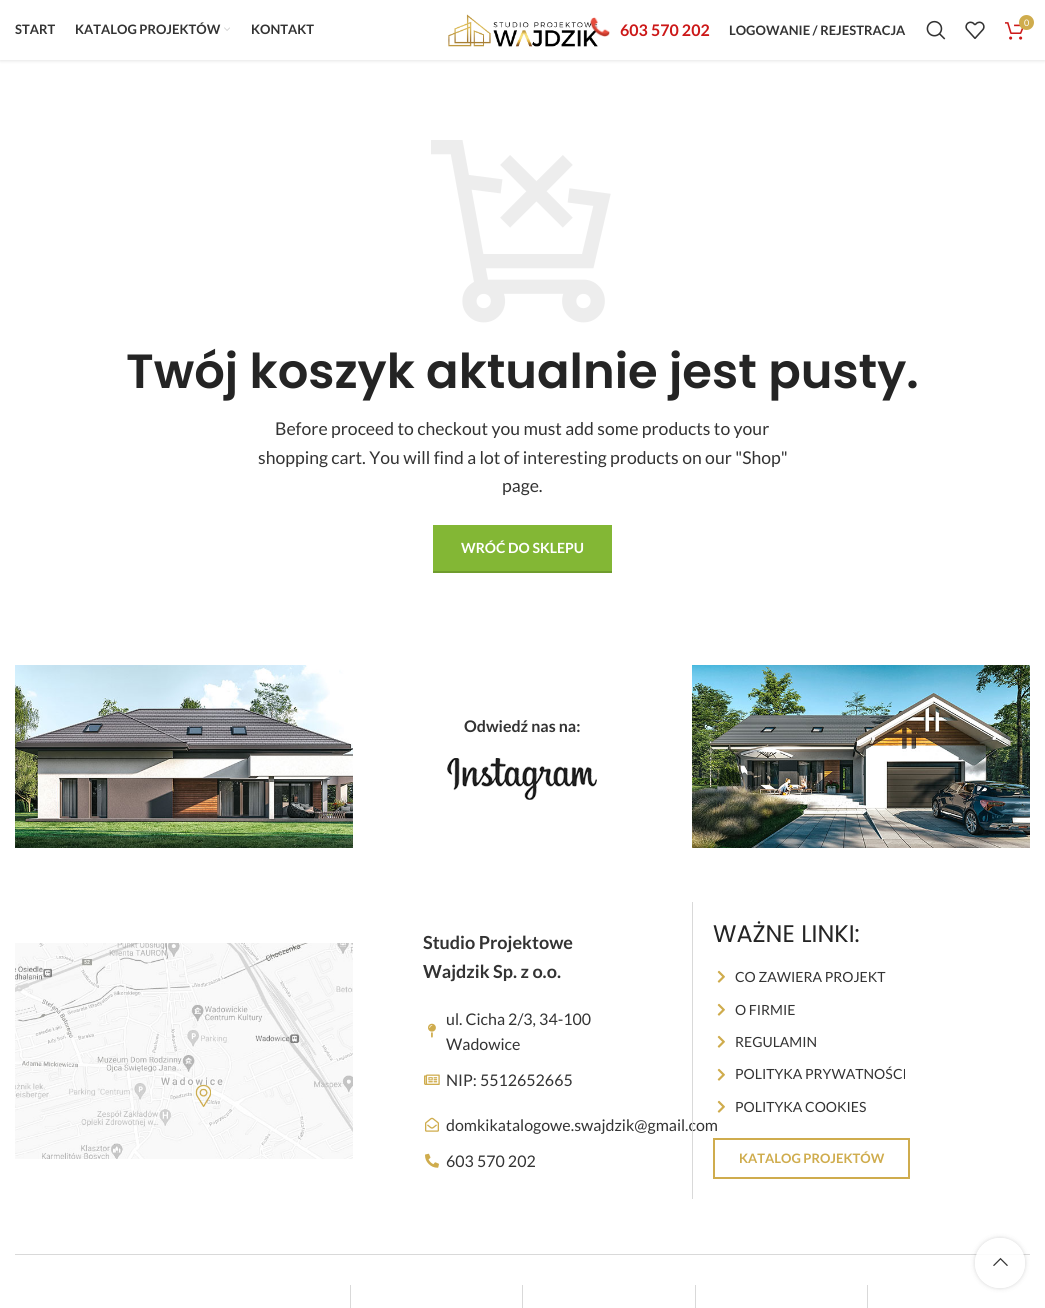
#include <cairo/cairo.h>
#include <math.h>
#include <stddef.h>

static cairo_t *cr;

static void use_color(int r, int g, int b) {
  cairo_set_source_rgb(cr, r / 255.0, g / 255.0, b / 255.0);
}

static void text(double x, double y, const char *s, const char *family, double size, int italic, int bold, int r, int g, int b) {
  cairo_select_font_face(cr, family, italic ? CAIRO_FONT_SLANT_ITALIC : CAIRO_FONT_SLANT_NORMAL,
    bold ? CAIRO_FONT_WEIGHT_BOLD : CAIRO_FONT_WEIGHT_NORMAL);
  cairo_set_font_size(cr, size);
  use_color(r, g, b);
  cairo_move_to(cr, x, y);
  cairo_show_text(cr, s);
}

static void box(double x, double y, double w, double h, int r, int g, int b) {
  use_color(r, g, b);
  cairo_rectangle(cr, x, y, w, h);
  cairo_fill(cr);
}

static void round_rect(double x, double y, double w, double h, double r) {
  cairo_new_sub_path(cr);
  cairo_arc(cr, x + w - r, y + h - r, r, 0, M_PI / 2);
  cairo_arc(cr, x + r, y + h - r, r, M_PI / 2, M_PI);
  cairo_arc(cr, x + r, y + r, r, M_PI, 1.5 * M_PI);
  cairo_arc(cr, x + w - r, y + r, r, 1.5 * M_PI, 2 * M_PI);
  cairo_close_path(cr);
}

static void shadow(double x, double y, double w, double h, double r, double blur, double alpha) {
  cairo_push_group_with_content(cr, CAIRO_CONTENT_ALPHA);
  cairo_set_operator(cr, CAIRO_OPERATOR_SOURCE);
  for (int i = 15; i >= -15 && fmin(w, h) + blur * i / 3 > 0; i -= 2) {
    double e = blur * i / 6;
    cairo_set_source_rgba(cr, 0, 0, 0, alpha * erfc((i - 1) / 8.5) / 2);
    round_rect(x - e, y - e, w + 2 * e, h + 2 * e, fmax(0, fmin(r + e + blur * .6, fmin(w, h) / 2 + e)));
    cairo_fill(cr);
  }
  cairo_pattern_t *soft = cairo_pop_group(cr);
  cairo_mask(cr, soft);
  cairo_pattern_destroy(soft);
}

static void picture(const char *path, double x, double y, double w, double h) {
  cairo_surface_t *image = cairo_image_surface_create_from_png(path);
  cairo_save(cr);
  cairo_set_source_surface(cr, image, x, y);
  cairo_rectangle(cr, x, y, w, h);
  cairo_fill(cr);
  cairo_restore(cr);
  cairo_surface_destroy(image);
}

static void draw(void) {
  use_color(255, 255, 255);
  cairo_paint(cr);
  use_color(0, 0, 0);
  shadow(0, 1, 1045, 60, 0, 1.5, 0.1);
  box(0, 0, 1045, 60, 255, 255, 255);
  picture("img_01.png", 224, 27, 6, 4);
  picture("img_02.png", 448, 14, 150, 33);
  picture("img_03.png", 590, 17, 20, 20);
  picture("img_04.png", 926, 20, 20, 20);
  picture("img_05.png", 965, 21, 20, 18);
  picture("img_06.png", 1005, 22, 19, 18);
  use_color(207, 172, 77);
  cairo_arc(cr, 1026.5, 22.5, 7.5, 0, 2 * M_PI);
  cairo_fill(cr);
  picture("img_07.png", 431, 140, 180, 183);
  box(433, 525, 179, 46, 131, 183, 53);
  box(433, 571, 179, 2, 111, 156, 45);
  picture("img_08.png", 15, 665, 338, 183);
  picture("img_09.png", 447, 758, 150, 42);
  picture("img_10.png", 692, 665, 338, 183);
  picture("img_11.png", 15, 943, 338, 216);
  picture("img_12.png", 428, 1023, 8, 15);
  picture("img_13.png", 424, 1074, 16, 11);
  picture("img_14.png", 425, 1117, 14, 15);
  picture("img_15.png", 425, 1153, 14, 15);
  picture("img_16.png", 717, 970, 8, 13);
  picture("img_16.png", 717, 1003, 8, 13);
  picture("img_16.png", 717, 1035, 8, 13);
  picture("img_16.png", 717, 1068, 8, 13);
  picture("img_16.png", 717, 1100, 8, 13);
  cairo_rectangle(cr, 714, 1139, 195, 39);
  use_color(207, 172, 77);
  cairo_stroke(cr);
  box(15, 1254, 1015, 1, 217, 217, 217);
  box(350, 1285, 1, 23, 217, 217, 217);
  box(522, 1285, 1, 23, 217, 217, 217);
  box(695, 1285, 1, 23, 217, 217, 217);
  box(867, 1285, 1, 23, 217, 217, 217);
  cairo_save(cr);
  cairo_set_fill_rule(cr, CAIRO_FILL_RULE_EVEN_ODD);
  cairo_new_path(cr);
  cairo_move_to(cr, 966, 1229);
  cairo_line_to(cr, 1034, 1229);
  cairo_line_to(cr, 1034, 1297);
  cairo_line_to(cr, 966, 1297);
  cairo_close_path(cr);
  cairo_move_to(cr, 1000, 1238);
  cairo_curve_to(cr, 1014, 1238, 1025, 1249, 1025, 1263);
  cairo_curve_to(cr, 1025, 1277, 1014, 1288, 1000, 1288);
  cairo_curve_to(cr, 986, 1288, 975, 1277, 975, 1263);
  cairo_curve_to(cr, 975, 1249, 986, 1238, 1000, 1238);
  cairo_close_path(cr);
  cairo_clip(cr);
  use_color(0, 0, 0);
  shadow(975, 1238, 50, 50, 25, 2.5, 0.17);
  cairo_restore(cr);
  cairo_set_source_rgba(cr, 1, 1, 1, 0.9);
  cairo_arc(cr, 1000, 1263, 25, 0, 2 * M_PI);
  cairo_fill(cr);
  picture("img_17.png", 993, 1257, 15, 9);
  text(15, 34, "START", "Lato", 13, 0, 1, 51, 51, 51);
  text(75, 34, "KATALOG PROJEKTÓW", "Lato", 13, 0, 1, 51, 51, 51);
  text(251, 34, "KONTAKT", "Lato", 13, 0, 1, 51, 51, 51);
  text(620, 36, "603 570 202", "Lato", 16, 0, 1, 204, 24, 24);
  text(729, 35, "LOGOWANIE / REJESTRACJA", "Lato", 13, 0, 1, 51, 51, 51);
  text(1024, 26, "0", "Lato", 9, 0, 0, 255, 255, 255);
  text(126, 388, "Twój koszyk aktualnie jest pusty.", "Poppins SemiBold", 48, 0, 0, 36, 36, 36);
  text(275, 435, "Before proceed to checkout you must add some products to your", "Lato", 17.6, 0, 0, 51, 51, 51);
  text(258, 464, "shopping cart. You will find a lot of interesting products on our \"Shop\"", "Lato", 17.6, 0, 0, 51, 51, 51);
  text(502, 492, "page.", "Lato", 17.6, 0, 0, 51, 51, 51);
  text(461, 553, "WRÓĆ DO SKLEPU", "Lato", 14, 0, 1, 255, 255, 255);
  text(464, 732, "Odwiedź nas na:", "Lato", 16, 0, 1, 51, 51, 51);
  text(423, 949, "Studio Projektowe", "Lato", 18, 0, 1, 51, 51, 51);
  text(423, 978, "Wajdzik Sp. z o.o.", "Lato", 18, 0, 1, 51, 51, 51);
  text(446, 1025, "ul. Cicha 2/3, 34-100", "Lato", 16, 0, 0, 51, 51, 51);
  text(446, 1050, "Wadowice", "Lato", 16, 0, 0, 51, 51, 51);
  text(446, 1086, "NIP: 5512652665", "Lato", 16, 0, 0, 51, 51, 51);
  text(446, 1131, "domkikatalogowe.swajdzik@gmail.com", "Lato", 16, 0, 0, 51, 51, 51);
  text(446, 1167, "603 570 202", "Lato", 16, 0, 0, 51, 51, 51);
  box(692, 902, 1, 297, 217, 217, 217);
  text(713, 942, "WAŻNE LINKI:", "Poppins", 24, 0, 0, 36, 36, 36);
  text(735, 982, "CO ZAWIERA PROJEKT", "Lato", 14, 0, 0, 51, 51, 51);
  text(735, 1015, "O FIRMIE", "Lato", 14, 0, 0, 51, 51, 51);
  text(735, 1047, "REGULAMIN", "Lato", 14, 0, 0, 51, 51, 51);
  text(735, 1079, "POLITYKA PRYWATNOŚCI", "Lato", 14, 0, 0, 51, 51, 51);
  text(735, 1112, "POLITYKA COOKIES", "Lato", 14, 0, 0, 51, 51, 51);
  text(739, 1163, "KATALOG PROJEKTÓW", "Lato", 13, 0, 1, 207, 172, 77);
}

int main(void) {
  cairo_surface_t *surface = cairo_image_surface_create(CAIRO_FORMAT_RGB24, 1045, 1308);
  cr = cairo_create(surface);
  cairo_font_options_t *options = cairo_font_options_create();
  cairo_font_options_set_hint_metrics(options, CAIRO_HINT_METRICS_OFF);
  cairo_font_options_set_hint_style(options, CAIRO_HINT_STYLE_NONE);
  cairo_set_font_options(cr, options);
  cairo_set_miter_limit(cr, 4);
  draw();
  cairo_surface_write_to_png(surface, "out.png");
  cairo_font_options_destroy(options);
  cairo_destroy(cr);
  cairo_surface_destroy(surface);
  return 0;
}
